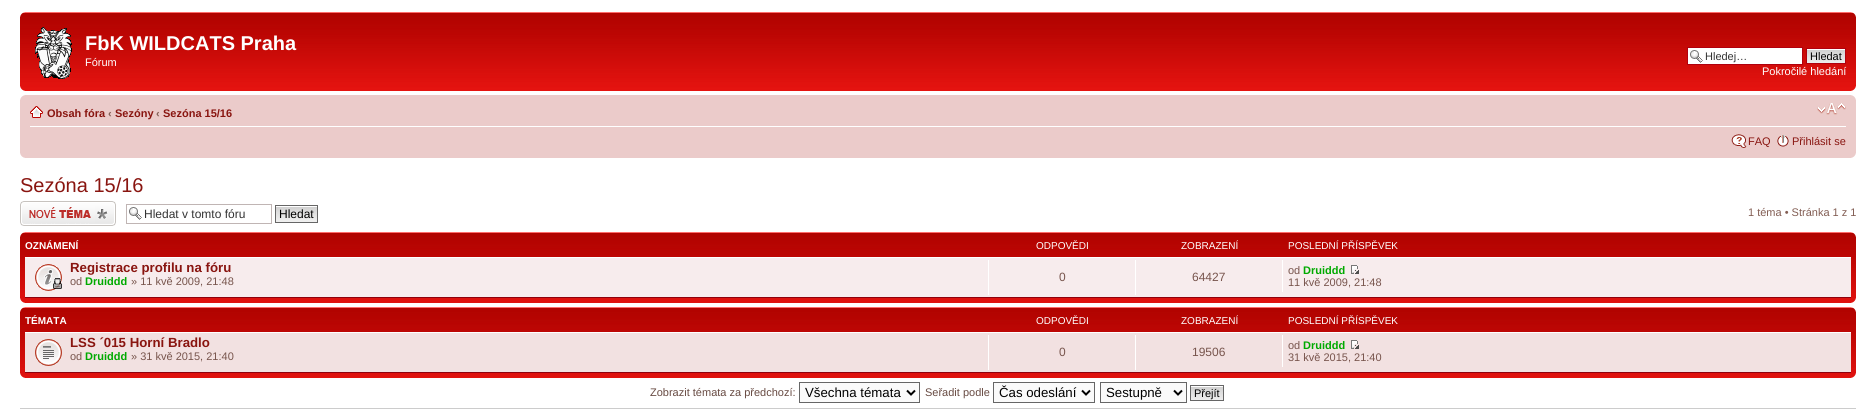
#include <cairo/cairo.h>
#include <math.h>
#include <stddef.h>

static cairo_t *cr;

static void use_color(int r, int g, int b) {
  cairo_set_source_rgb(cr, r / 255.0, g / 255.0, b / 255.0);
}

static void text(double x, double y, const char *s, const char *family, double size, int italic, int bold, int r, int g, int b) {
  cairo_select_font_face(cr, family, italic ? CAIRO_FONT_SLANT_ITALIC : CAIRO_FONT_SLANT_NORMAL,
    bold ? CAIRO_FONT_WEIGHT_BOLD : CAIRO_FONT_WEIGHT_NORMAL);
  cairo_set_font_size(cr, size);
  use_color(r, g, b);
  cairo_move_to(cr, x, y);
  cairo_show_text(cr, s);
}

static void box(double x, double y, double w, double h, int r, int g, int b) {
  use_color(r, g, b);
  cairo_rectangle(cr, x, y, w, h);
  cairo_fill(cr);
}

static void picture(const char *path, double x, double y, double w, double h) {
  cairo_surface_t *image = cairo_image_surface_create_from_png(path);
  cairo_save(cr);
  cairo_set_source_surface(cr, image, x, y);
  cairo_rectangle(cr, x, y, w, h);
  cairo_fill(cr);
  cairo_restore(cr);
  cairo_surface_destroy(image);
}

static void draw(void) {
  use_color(255, 255, 255);
  cairo_paint(cr);
  picture("img_01.png", 20, 12, 1836, 79);
  picture("img_02.png", 20, 12, 5, 5);
  picture("img_03.png", 1851, 12, 5, 5);
  picture("img_04.png", 35, 27, 37, 52);
  box(1688, 48, 114, 16, 255, 255, 255);
  picture("img_05.png", 1690, 50, 13, 13);
  cairo_rectangle(cr, 1687.5, 47.5, 115, 17);
  use_color(176, 0, 14);
  cairo_set_line_width(cr, 1);
  cairo_stroke(cr);
  picture("img_06.png", 1807, 49, 38, 14);
  cairo_rectangle(cr, 1806.5, 48.5, 39, 15);
  cairo_stroke(cr);
  picture("img_07.png", 20, 86, 5, 5);
  picture("img_08.png", 1851, 86, 5, 5);
  box(20, 95, 1836, 63, 235, 203, 202);
  picture("img_09.png", 20, 95, 5, 5);
  picture("img_10.png", 1851, 95, 5, 5);
  box(30, 126, 1816, 1, 255, 255, 255);
  picture("img_11.png", 30, 106, 13, 12);
  picture("img_12.png", 1817, 103, 29, 12);
  picture("img_13.png", 1731, 134, 16, 14);
  picture("img_14.png", 1777, 135, 12, 12);
  picture("img_15.png", 20, 153, 5, 5);
  picture("img_16.png", 1851, 153, 5, 5);
  picture("img_17.png", 20, 201, 96, 25);
  picture("img_05.png", 129, 207, 13, 13);
  cairo_rectangle(cr, 126.5, 204.5, 145, 19);
  use_color(192, 181, 180);
  cairo_stroke(cr);
  picture("img_18.png", 276, 206, 41, 16);
  cairo_rectangle(cr, 275.5, 205.5, 42, 17);
  use_color(102, 102, 102);
  cairo_stroke(cr);
  picture("img_19.png", 20, 232, 1836, 71);
  picture("img_02.png", 20, 232, 5, 5);
  picture("img_03.png", 1851, 232, 5, 5);
  box(25, 258, 1826, 39, 247, 236, 237);
  box(25, 257, 1826, 1, 255, 255, 255);
  box(25, 297, 1826, 1, 143, 0, 13);
  picture("img_20.png", 35, 264, 27, 27);
  box(988, 260, 1, 35, 255, 255, 255);
  box(1135, 260, 1, 35, 255, 255, 255);
  box(1282, 260, 1, 32, 255, 255, 255);
  picture("img_21.png", 1351, 265, 8, 9);
  picture("img_22.png", 20, 298, 5, 5);
  picture("img_23.png", 1851, 298, 5, 5);
  picture("img_19.png", 20, 307, 1836, 71);
  picture("img_02.png", 20, 307, 5, 5);
  picture("img_03.png", 1851, 307, 5, 5);
  box(25, 333, 1826, 39, 242, 225, 225);
  box(25, 332, 1826, 1, 255, 255, 255);
  box(25, 372, 1826, 1, 143, 0, 13);
  picture("img_24.png", 35, 339, 27, 27);
  box(988, 335, 1, 35, 255, 255, 255);
  box(1135, 335, 1, 35, 255, 255, 255);
  box(1282, 335, 1, 32, 255, 255, 255);
  picture("img_25.png", 1351, 340, 8, 9);
  picture("img_22.png", 20, 373, 5, 5);
  picture("img_23.png", 1851, 373, 5, 5);
  use_color(250, 250, 250);
  cairo_rectangle(cr, 799.5, 382.5, 120, 20);
  cairo_fill_preserve(cr);
  use_color(102, 102, 102);
  cairo_stroke(cr);
  cairo_new_path(cr);
  cairo_move_to(cr, 907, 390.5);
  cairo_line_to(cr, 911, 394.5);
  cairo_line_to(cr, 915, 390.5);
  use_color(0, 0, 0);
  cairo_set_line_width(cr, 2);
  cairo_stroke(cr);
  use_color(250, 250, 250);
  cairo_rectangle(cr, 993.5, 382.5, 101, 20);
  cairo_fill_preserve(cr);
  use_color(102, 102, 102);
  cairo_set_line_width(cr, 1);
  cairo_stroke(cr);
  cairo_new_path(cr);
  cairo_move_to(cr, 1082, 390.5);
  cairo_line_to(cr, 1086, 394.5);
  cairo_line_to(cr, 1090, 390.5);
  use_color(0, 0, 0);
  cairo_set_line_width(cr, 2);
  cairo_stroke(cr);
  use_color(250, 250, 250);
  cairo_rectangle(cr, 1100.5, 382.5, 86, 20);
  cairo_fill_preserve(cr);
  use_color(102, 102, 102);
  cairo_set_line_width(cr, 1);
  cairo_stroke(cr);
  cairo_new_path(cr);
  cairo_move_to(cr, 1174, 390.5);
  cairo_line_to(cr, 1178, 394.5);
  cairo_line_to(cr, 1182, 390.5);
  use_color(0, 0, 0);
  cairo_set_line_width(cr, 2);
  cairo_stroke(cr);
  picture("img_26.png", 1191, 386, 32, 14);
  cairo_rectangle(cr, 1190.5, 385.5, 33, 15);
  use_color(102, 102, 102);
  cairo_set_line_width(cr, 1);
  cairo_stroke(cr);
  box(20, 408, 1836, 1, 204, 204, 204);
  text(85, 50, "FbK WILDCATS Praha", "Liberation Sans", 20, 0, 1, 255, 255, 255);
  text(85, 66, "Fórum", "Liberation Sans", 11, 0, 0, 255, 255, 255);
  text(1705, 60, "Hledej…", "Liberation Sans", 11, 0, 0, 51, 51, 51);
  text(1810, 60, "Hledat", "Liberation Sans", 11, 0, 0, 0, 0, 0);
  text(1762, 75, "Pokročilé hledání", "Liberation Sans", 11, 0, 0, 255, 255, 255);
  text(47, 117, "Obsah fóra", "Liberation Sans", 11, 0, 1, 137, 21, 16);
  text(108, 117, "‹", "Liberation Sans", 11, 0, 1, 130, 93, 83);
  text(115, 117, "Sezóny", "Liberation Sans", 11, 0, 1, 137, 21, 16);
  text(156, 117, "‹", "Liberation Sans", 11, 0, 1, 130, 93, 83);
  text(163, 117, "Sezóna 15/16", "Liberation Sans", 11, 0, 1, 137, 21, 16);
  text(1748, 145, "FAQ", "Liberation Sans", 11, 0, 0, 137, 21, 16);
  text(1792, 145, "Přihlásit se", "Liberation Sans", 11, 0, 0, 137, 21, 16);
  text(20, 192, "Sezóna 15/16", "Liberation Sans", 20, 0, 0, 137, 21, 16);
  text(144, 218, "Hledat v tomto fóru", "Liberation Sans", 12, 0, 0, 51, 51, 51);
  text(279, 218, "Hledat", "Liberation Sans", 12, 0, 0, 0, 0, 0);
  text(1748, 216, "1 téma • Stránka 1 z 1", "Liberation Sans", 11, 0, 0, 130, 93, 83);
  text(25, 249, "OZNÁMENÍ", "Liberation Sans", 10, 0, 1, 255, 255, 255);
  text(1036, 249, "ODPOVĚDI", "Liberation Sans", 10, 0, 0, 255, 255, 255);
  text(1181, 249, "ZOBRAZENÍ", "Liberation Sans", 10, 0, 0, 255, 255, 255);
  text(1288, 249, "POSLEDNÍ PŘÍSPĚVEK", "Liberation Sans", 10, 0, 0, 255, 255, 255);
  text(70, 272, "Registrace profilu na fóru", "Liberation Sans", 13.25, 0, 1, 137, 21, 16);
  text(70, 285, "od", "Liberation Sans", 11, 0, 0, 119, 84, 76);
  text(85, 285, "Druiddd", "Liberation Sans", 11, 0, 1, 0, 170, 0);
  text(131, 285, "» 11 kvě 2009, 21:48", "Liberation Sans", 11, 0, 0, 119, 84, 76);
  text(1059, 281, "0", "Liberation Sans", 12, 0, 0, 119, 84, 76);
  text(1192, 281, "64427", "Liberation Sans", 12, 0, 0, 119, 84, 76);
  text(1288, 274, "od", "Liberation Sans", 11, 0, 0, 119, 84, 76);
  text(1303, 274, "Druiddd", "Liberation Sans", 11, 0, 1, 0, 170, 0);
  text(1288, 286, "11 kvě 2009, 21:48", "Liberation Sans", 11, 0, 0, 119, 84, 76);
  text(25, 324, "TÉMATA", "Liberation Sans", 10, 0, 1, 255, 255, 255);
  text(1036, 324, "ODPOVĚDI", "Liberation Sans", 10, 0, 0, 255, 255, 255);
  text(1181, 324, "ZOBRAZENÍ", "Liberation Sans", 10, 0, 0, 255, 255, 255);
  text(1288, 324, "POSLEDNÍ PŘÍSPĚVEK", "Liberation Sans", 10, 0, 0, 255, 255, 255);
  text(70, 347, "LSS ´015 Horní Bradlo", "Liberation Sans", 13.25, 0, 1, 137, 21, 16);
  text(70, 360, "od", "Liberation Sans", 11, 0, 0, 119, 84, 76);
  text(85, 360, "Druiddd", "Liberation Sans", 11, 0, 1, 0, 170, 0);
  text(131, 360, "» 31 kvě 2015, 21:40", "Liberation Sans", 11, 0, 0, 119, 84, 76);
  text(1059, 356, "0", "Liberation Sans", 12, 0, 0, 119, 84, 76);
  text(1192, 356, "19506", "Liberation Sans", 12, 0, 0, 119, 84, 76);
  text(1288, 349, "od", "Liberation Sans", 11, 0, 0, 119, 84, 76);
  text(1303, 349, "Druiddd", "Liberation Sans", 11, 0, 1, 0, 170, 0);
  text(1288, 361, "31 kvě 2015, 21:40", "Liberation Sans", 11, 0, 0, 119, 84, 76);
  text(650, 396, "Zobrazit témata za předchozí:", "Liberation Sans", 11, 0, 0, 103, 74, 66);
  text(805, 397, "Všechna témata", "Liberation Sans", 13.25, 0, 0, 0, 0, 0);
  text(925, 396, "Seřadit podle", "Liberation Sans", 11, 0, 0, 103, 74, 66);
  text(999, 397, "Čas odeslání", "Liberation Sans", 13.25, 0, 0, 0, 0, 0);
  text(1106, 397, "Sestupně", "Liberation Sans", 13.25, 0, 0, 0, 0, 0);
  text(1194, 397, "Přejít", "Liberation Sans", 11, 0, 0, 0, 0, 0);
}

int main(void) {
  cairo_surface_t *surface = cairo_image_surface_create(CAIRO_FORMAT_RGB24, 1876, 412);
  cr = cairo_create(surface);
  cairo_font_options_t *options = cairo_font_options_create();
  cairo_font_options_set_hint_metrics(options, CAIRO_HINT_METRICS_OFF);
  cairo_font_options_set_hint_style(options, CAIRO_HINT_STYLE_NONE);
  cairo_set_font_options(cr, options);
  cairo_set_miter_limit(cr, 4);
  draw();
  cairo_surface_write_to_png(surface, "out.png");
  cairo_font_options_destroy(options);
  cairo_destroy(cr);
  cairo_surface_destroy(surface);
  return 0;
}
